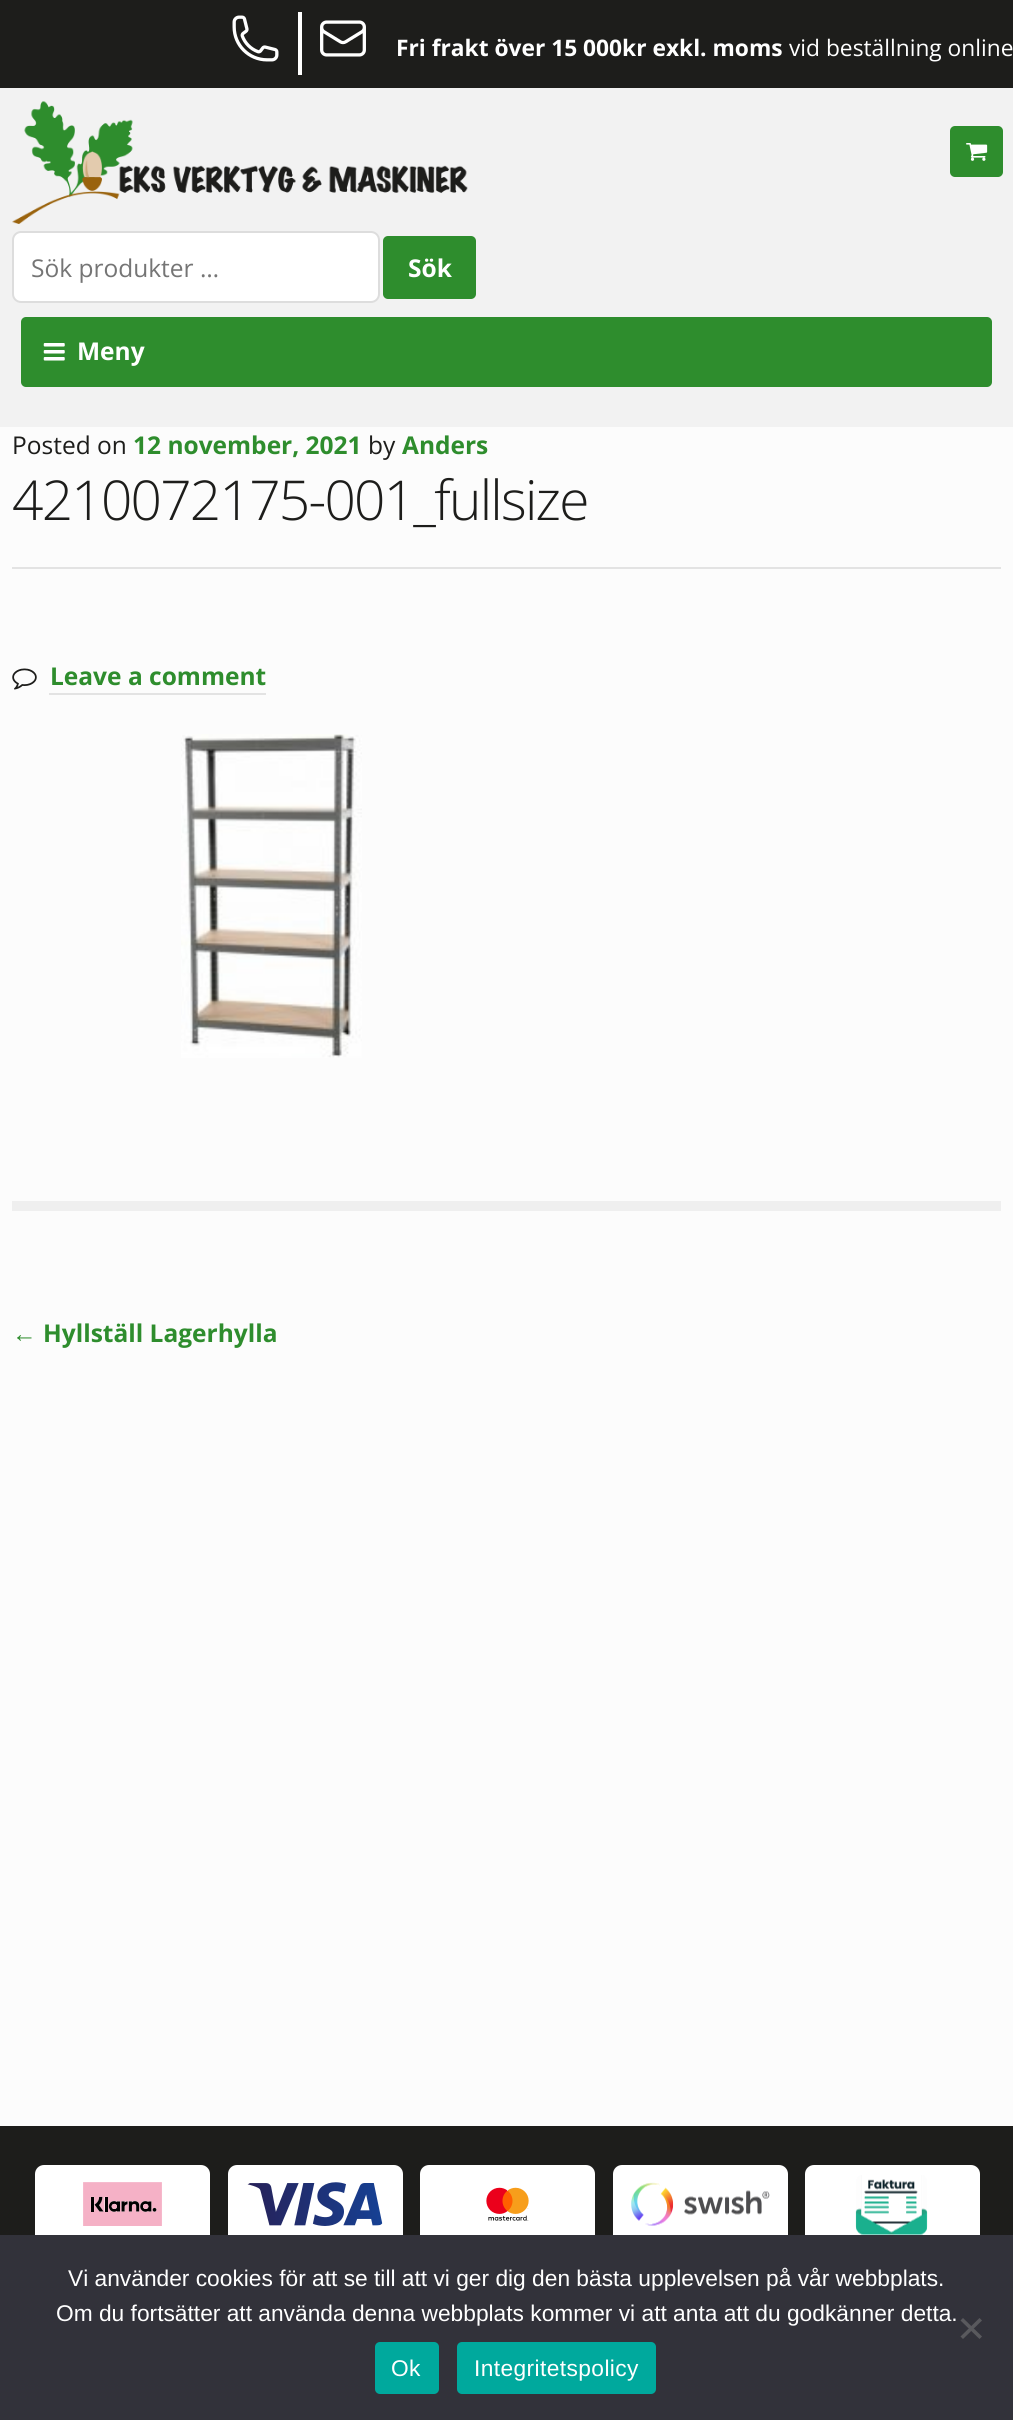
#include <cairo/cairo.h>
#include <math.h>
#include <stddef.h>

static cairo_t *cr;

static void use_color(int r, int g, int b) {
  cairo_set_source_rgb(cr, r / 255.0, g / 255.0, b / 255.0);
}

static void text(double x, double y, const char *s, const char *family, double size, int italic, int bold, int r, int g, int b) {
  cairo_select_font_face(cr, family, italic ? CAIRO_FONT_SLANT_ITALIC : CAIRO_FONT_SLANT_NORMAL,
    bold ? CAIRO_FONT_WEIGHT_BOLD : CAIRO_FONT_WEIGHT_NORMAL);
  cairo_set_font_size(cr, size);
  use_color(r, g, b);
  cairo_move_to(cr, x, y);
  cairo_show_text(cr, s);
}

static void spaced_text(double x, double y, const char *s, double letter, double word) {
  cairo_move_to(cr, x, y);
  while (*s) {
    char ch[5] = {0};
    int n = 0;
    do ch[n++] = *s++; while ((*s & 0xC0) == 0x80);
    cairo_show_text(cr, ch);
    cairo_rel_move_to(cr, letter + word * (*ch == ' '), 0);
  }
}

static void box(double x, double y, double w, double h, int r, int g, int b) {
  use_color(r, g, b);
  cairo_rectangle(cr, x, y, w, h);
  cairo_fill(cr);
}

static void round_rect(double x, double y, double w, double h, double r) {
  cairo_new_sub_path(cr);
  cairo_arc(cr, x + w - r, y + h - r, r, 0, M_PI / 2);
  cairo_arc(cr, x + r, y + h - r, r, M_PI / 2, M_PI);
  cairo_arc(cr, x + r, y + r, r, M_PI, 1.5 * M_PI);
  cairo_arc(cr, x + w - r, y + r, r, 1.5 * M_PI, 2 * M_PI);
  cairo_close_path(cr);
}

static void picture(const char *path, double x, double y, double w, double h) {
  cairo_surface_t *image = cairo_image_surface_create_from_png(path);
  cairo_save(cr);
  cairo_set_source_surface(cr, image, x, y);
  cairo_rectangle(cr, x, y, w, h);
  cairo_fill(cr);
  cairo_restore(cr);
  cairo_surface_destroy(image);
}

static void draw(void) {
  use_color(252, 252, 252);
  cairo_paint(cr);
  box(0, 88, 1013, 339, 242, 242, 242);
  box(0, 0, 1013, 88, 29, 29, 27);
  box(298, 12, 4, 63, 255, 255, 255);
  picture("img_01.png", 232, 15, 47, 47);
  picture("img_02.png", 320, 20, 46, 37);
  picture("img_03.png", 12, 101, 456, 123);
  use_color(46, 141, 45);
  round_rect(950, 126, 53, 51, 5);
  cairo_fill(cr);
  picture("img_04.png", 966, 143, 22, 18);
  use_color(255, 255, 255);
  round_rect(13, 232, 366, 70, 8);
  cairo_fill_preserve(cr);
  use_color(221, 221, 221);
  cairo_stroke(cr);
  use_color(46, 141, 45);
  round_rect(383, 236, 93, 63, 5);
  cairo_fill(cr);
  round_rect(21, 317, 971, 70, 5);
  cairo_fill(cr);
  picture("img_05.png", 43, 343, 22, 18);
  box(12, 1201, 989, 10, 239, 239, 239);
  box(12, 567, 989, 2, 227, 227, 227);
  picture("img_06.png", 12, 668, 25, 22);
  box(49, 693, 217, 2, 227, 227, 227);
  picture("img_07.png", 181, 734, 181, 324);
  box(0, 2126, 1013, 109, 29, 29, 27);
  use_color(255, 255, 255);
  round_rect(35, 2165, 175, 79, 9);
  cairo_fill(cr);
  picture("img_08.png", 83, 2182, 79, 44);
  round_rect(228, 2165, 175, 79, 9);
  cairo_fill(cr);
  picture("img_09.png", 247, 2182, 136, 44);
  round_rect(420, 2165, 175, 79, 9);
  cairo_fill(cr);
  picture("img_10.png", 486, 2187, 43, 34);
  round_rect(613, 2165, 175, 79, 9);
  cairo_fill(cr);
  picture("img_11.png", 631, 2182, 139, 44);
  round_rect(805, 2165, 175, 79, 9);
  cairo_fill(cr);
  picture("img_12.png", 855, 2175, 73, 60);
  box(0, 2235, 1013, 185, 50, 50, 58);
  use_color(89, 89, 93);
  cairo_new_path(cr);
  cairo_move_to(cr, 979.5, 2318);
  cairo_line_to(cr, 982, 2320.5);
  cairo_line_to(cr, 963, 2339);
  cairo_line_to(cr, 960.5, 2336.5);
  cairo_close_path(cr);
  cairo_fill(cr);
  cairo_new_path(cr);
  cairo_move_to(cr, 960.5, 2320.5);
  cairo_line_to(cr, 963, 2318);
  cairo_line_to(cr, 982, 2336.5);
  cairo_line_to(cr, 979.5, 2339);
  cairo_close_path(cr);
  cairo_fill(cr);
  use_color(0, 169, 157);
  round_rect(375, 2342, 64, 52, 5);
  cairo_fill(cr);
  round_rect(457, 2342, 199, 52, 5);
  cairo_fill(cr);
  text(396, 56, "Fri frakt över 15 000kr exkl. moms", "Open Sans", 22.75, 0, 1, 255, 255, 255);
  text(789, 56, "vid beställning online", "Open Sans", 22.75, 0, 0, 255, 255, 255);
  text(31, 277, "Sök produkter …", "Open Sans", 24.5, 0, 0, 117, 117, 117);
  text(408, 277, "Sök", "Open Sans", 24.5, 0, 1, 255, 255, 255);
  text(77, 360, "Meny", "Open Sans", 24.5, 0, 1, 255, 255, 255);
  text(12, 454, "Posted on", "Open Sans", 24.5, 0, 0, 29, 29, 27);
  text(133, 454, "12 november, 2021", "Open Sans", 24.5, 0, 1, 46, 141, 45);
  text(368, 454, "by", "Open Sans", 24.5, 0, 0, 29, 29, 27);
  text(402, 454, "Anders", "Open Sans", 24.5, 0, 1, 46, 141, 45);
  cairo_select_font_face(cr, "Open Sans Light", CAIRO_FONT_SLANT_NORMAL, CAIRO_FONT_WEIGHT_NORMAL);
  cairo_set_font_size(cr, 55);
  use_color(29, 29, 27);
  spaced_text(12, 520, "4210072175-001_fullsize", -1.75, 0);
  text(50, 685, "Leave a comment", "Open Sans", 24.5, 0, 1, 46, 141, 45);
  text(12, 1342, "←", "Liberation Sans", 24.5, 0, 1, 46, 141, 45);
  text(43, 1342, "Hyllställ Lagerhylla", "Open Sans", 24.5, 0, 1, 46, 141, 45);
  text(68, 2286, "Vi använder cookies för att se till att vi ger dig den bästa upplevelsen på vår webbplats.", "Liberation Sans", 22.75, 0, 0, 255, 255, 255);
  text(56, 2321, "Om du fortsätter att använda denna webbplats kommer vi att anta att du godkänner detta.", "Liberation Sans", 22.75, 0, 0, 255, 255, 255);
  spaced_text(391, 2376, "Ok", 0.4, 0);
  spaced_text(474, 2376, "Integritetspolicy", 0.4, 0);
}

int main(void) {
  cairo_surface_t *surface = cairo_image_surface_create(CAIRO_FORMAT_RGB24, 1013, 2420);
  cr = cairo_create(surface);
  cairo_font_options_t *options = cairo_font_options_create();
  cairo_font_options_set_hint_metrics(options, CAIRO_HINT_METRICS_OFF);
  cairo_font_options_set_hint_style(options, CAIRO_HINT_STYLE_NONE);
  cairo_set_font_options(cr, options);
  cairo_set_miter_limit(cr, 4);
  draw();
  cairo_surface_write_to_png(surface, "out.png");
  cairo_font_options_destroy(options);
  cairo_destroy(cr);
  cairo_surface_destroy(surface);
  return 0;
}
